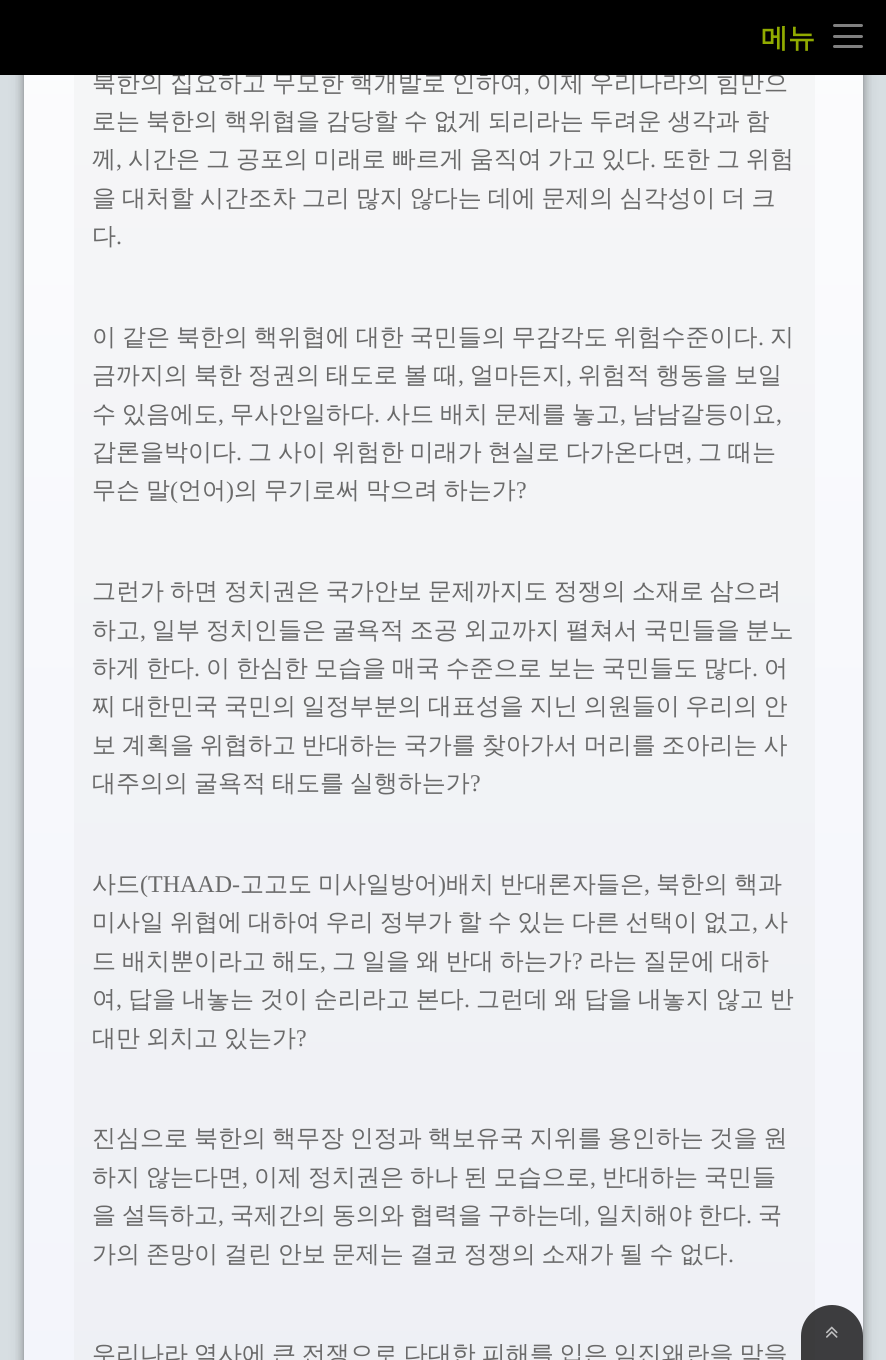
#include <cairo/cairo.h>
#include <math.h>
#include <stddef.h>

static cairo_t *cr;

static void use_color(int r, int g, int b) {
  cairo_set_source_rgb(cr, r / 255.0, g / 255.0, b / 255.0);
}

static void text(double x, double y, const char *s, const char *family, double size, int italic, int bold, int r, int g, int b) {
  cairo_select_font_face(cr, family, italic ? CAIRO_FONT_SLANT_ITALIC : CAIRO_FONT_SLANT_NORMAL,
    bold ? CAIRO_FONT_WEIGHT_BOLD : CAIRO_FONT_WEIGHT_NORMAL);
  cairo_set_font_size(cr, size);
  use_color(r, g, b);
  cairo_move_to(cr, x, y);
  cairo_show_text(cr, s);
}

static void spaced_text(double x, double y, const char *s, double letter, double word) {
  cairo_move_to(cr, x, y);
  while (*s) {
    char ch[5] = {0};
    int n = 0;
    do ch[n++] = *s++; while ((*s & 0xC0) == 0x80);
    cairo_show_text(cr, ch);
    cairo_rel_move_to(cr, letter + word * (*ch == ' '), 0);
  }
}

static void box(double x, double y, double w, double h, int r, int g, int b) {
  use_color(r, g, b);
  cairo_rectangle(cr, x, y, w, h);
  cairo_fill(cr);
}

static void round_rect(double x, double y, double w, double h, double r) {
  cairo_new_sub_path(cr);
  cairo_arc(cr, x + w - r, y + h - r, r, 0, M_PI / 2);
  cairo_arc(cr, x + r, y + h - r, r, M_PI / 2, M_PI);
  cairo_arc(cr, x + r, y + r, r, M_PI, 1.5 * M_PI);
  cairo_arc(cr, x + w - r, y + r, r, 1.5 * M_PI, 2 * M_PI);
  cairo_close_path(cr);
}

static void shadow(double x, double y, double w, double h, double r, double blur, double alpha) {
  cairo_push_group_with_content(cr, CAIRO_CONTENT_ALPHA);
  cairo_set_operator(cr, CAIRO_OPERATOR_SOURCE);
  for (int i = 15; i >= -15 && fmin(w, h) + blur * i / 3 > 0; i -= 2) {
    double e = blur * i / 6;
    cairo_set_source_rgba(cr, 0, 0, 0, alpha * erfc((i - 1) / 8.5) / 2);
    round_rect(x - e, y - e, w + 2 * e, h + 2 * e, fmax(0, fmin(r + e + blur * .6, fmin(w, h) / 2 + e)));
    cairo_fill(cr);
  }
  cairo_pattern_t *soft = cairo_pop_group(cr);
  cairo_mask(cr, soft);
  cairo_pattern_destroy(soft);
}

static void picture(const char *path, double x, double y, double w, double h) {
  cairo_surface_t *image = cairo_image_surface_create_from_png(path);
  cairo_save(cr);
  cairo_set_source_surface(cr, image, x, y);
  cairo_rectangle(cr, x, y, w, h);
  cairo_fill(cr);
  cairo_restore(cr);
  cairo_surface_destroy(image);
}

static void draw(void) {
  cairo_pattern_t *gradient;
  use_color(215, 222, 226);
  cairo_paint(cr);
  use_color(0, 0, 0);
  shadow(24, -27, 839, 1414, 15, 4, 0.25);
  shadow(24, -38, 839, 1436, 15, 7.5, 0.25);
  gradient = cairo_pattern_create_linear(443, -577, 443, 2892);
  cairo_pattern_add_color_stop_rgba(gradient, 0, 1, 1, 1, 1);
  cairo_pattern_add_color_stop_rgba(gradient, 1, 0.918, 0.929, 0.969, 1);
  cairo_set_source(cr, gradient);
  cairo_pattern_destroy(gradient);
  cairo_rectangle(cr, 24, 75, 839, 1285);
  cairo_fill(cr);
  gradient = cairo_pattern_create_linear(443, -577, 443, 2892);
  cairo_pattern_add_color_stop_rgba(gradient, 0, 0.976, 0.976, 0.976, 1);
  cairo_pattern_add_color_stop_rgba(gradient, 1, 0.902, 0.914, 0.945, 1);
  cairo_set_source(cr, gradient);
  cairo_pattern_destroy(gradient);
  cairo_rectangle(cr, 74, 75, 741, 1285);
  cairo_fill(cr);
  cairo_set_source_rgba(cr, 0, 0, 0, 0.75);
  cairo_new_path(cr);
  cairo_move_to(cr, 832, 1305);
  cairo_curve_to(cr, 849, 1305, 863, 1319, 863, 1336);
  cairo_line_to(cr, 863, 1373);
  cairo_line_to(cr, 801, 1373);
  cairo_line_to(cr, 801, 1336);
  cairo_curve_to(cr, 801, 1319, 815, 1305, 832, 1305);
  cairo_close_path(cr);
  cairo_fill(cr);
  picture("img_01.png", 826, 1326, 12, 12);
  cairo_select_font_face(cr, "WenQuanYi Zen Hei Medium", CAIRO_FONT_SLANT_NORMAL, CAIRO_FONT_WEIGHT_NORMAL);
  cairo_set_font_size(cr, 24);
  use_color(106, 106, 106);
  spaced_text(92, 91, "북한의 집요하고 무모한 핵개발로 인하여", 0, -1.25);
  text(524, 91, ",", "Liberation Serif", 24, 0, 0, 106, 106, 106);
  cairo_select_font_face(cr, "WenQuanYi Zen Hei Medium", CAIRO_FONT_SLANT_NORMAL, CAIRO_FONT_WEIGHT_NORMAL);
  spaced_text(536, 91, "이제 우리나라의 힘만으", 0, -1.25);
  box(0, 0, 886, 75, 0, 0, 0);
  use_color(128, 128, 128);
  round_rect(833, 45, 30, 3, 1.5);
  cairo_fill(cr);
  round_rect(833, 35, 30, 3, 1.5);
  cairo_fill(cr);
  round_rect(833, 24, 30, 3, 1.5);
  cairo_fill(cr);
  text(761, 47, "메뉴", "WenQuanYi Zen Hei", 27, 0, 1, 145, 171, 0);
  cairo_select_font_face(cr, "WenQuanYi Zen Hei Medium", CAIRO_FONT_SLANT_NORMAL, CAIRO_FONT_WEIGHT_NORMAL);
  cairo_set_font_size(cr, 24);
  use_color(106, 106, 106);
  spaced_text(92, 129, "로는 북한의 핵위협을 감당할 수 없게 되리라는 두려운 생각과 함", 0, -1.25);
  text(92, 167, "께", "WenQuanYi Zen Hei Medium", 24, 0, 0, 106, 106, 106);
  text(116, 167, ",", "Liberation Serif", 24, 0, 0, 106, 106, 106);
  cairo_select_font_face(cr, "WenQuanYi Zen Hei Medium", CAIRO_FONT_SLANT_NORMAL, CAIRO_FONT_WEIGHT_NORMAL);
  spaced_text(128, 167, "시간은 그 공포의 미래로 빠르게 움직여 가고 있다", 0, -1.25);
  text(650, 167, ".", "Liberation Serif", 24, 0, 0, 106, 106, 106);
  cairo_select_font_face(cr, "WenQuanYi Zen Hei Medium", CAIRO_FONT_SLANT_NORMAL, CAIRO_FONT_WEIGHT_NORMAL);
  spaced_text(662, 167, "또한 그 위험", 0, -1.25);
  spaced_text(92, 206, "을 대처할 시간조차 그리 많지 않다는 데에 문제의 심각성이 더 크", 0, -1.25);
  text(92, 244, "다", "WenQuanYi Zen Hei Medium", 24, 0, 0, 106, 106, 106);
  text(116, 244, ".", "Liberation Serif", 24, 0, 0, 106, 106, 106);
  cairo_select_font_face(cr, "WenQuanYi Zen Hei Medium", CAIRO_FONT_SLANT_NORMAL, CAIRO_FONT_WEIGHT_NORMAL);
  spaced_text(92, 345, "이 같은 북한의 핵위협에 대한 국민들의 무감각도 위험수준이다", 0, -1.25);
  text(758, 345, ".", "Liberation Serif", 24, 0, 0, 106, 106, 106);
  text(770, 345, "지", "WenQuanYi Zen Hei Medium", 24, 0, 0, 106, 106, 106);
  spaced_text(92, 383, "금까지의 북한 정권의 태도로 볼 때", 0, -1.25);
  text(458, 383, ",", "Liberation Serif", 24, 0, 0, 106, 106, 106);
  text(470, 383, "얼마든지", "WenQuanYi Zen Hei Medium", 24, 0, 0, 106, 106, 106);
  text(566, 383, ",", "Liberation Serif", 24, 0, 0, 106, 106, 106);
  cairo_select_font_face(cr, "WenQuanYi Zen Hei Medium", CAIRO_FONT_SLANT_NORMAL, CAIRO_FONT_WEIGHT_NORMAL);
  spaced_text(578, 383, "위험적 행동을 보일", 0, -1.25);
  spaced_text(92, 422, "수 있음에도", 0, -1.25);
  text(218, 422, ",", "Liberation Serif", 24, 0, 0, 106, 106, 106);
  text(230, 422, "무사안일하다", "WenQuanYi Zen Hei Medium", 24, 0, 0, 106, 106, 106);
  text(374, 422, ".", "Liberation Serif", 24, 0, 0, 106, 106, 106);
  cairo_select_font_face(cr, "WenQuanYi Zen Hei Medium", CAIRO_FONT_SLANT_NORMAL, CAIRO_FONT_WEIGHT_NORMAL);
  spaced_text(386, 422, "사드 배치 문제를 놓고", 0, -1.25);
  text(620, 422, ",", "Liberation Serif", 24, 0, 0, 106, 106, 106);
  text(632, 422, "남남갈등이요", "WenQuanYi Zen Hei Medium", 24, 0, 0, 106, 106, 106);
  text(776, 422, ",", "Liberation Serif", 24, 0, 0, 106, 106, 106);
  text(92, 460, "갑론을박이다", "WenQuanYi Zen Hei Medium", 24, 0, 0, 106, 106, 106);
  text(236, 460, ".", "Liberation Serif", 24, 0, 0, 106, 106, 106);
  cairo_select_font_face(cr, "WenQuanYi Zen Hei Medium", CAIRO_FONT_SLANT_NORMAL, CAIRO_FONT_WEIGHT_NORMAL);
  spaced_text(248, 460, "그 사이 위험한 미래가 현실로 다가온다면", 0, -1.25);
  text(686, 460, ",", "Liberation Serif", 24, 0, 0, 106, 106, 106);
  cairo_select_font_face(cr, "WenQuanYi Zen Hei Medium", CAIRO_FONT_SLANT_NORMAL, CAIRO_FONT_WEIGHT_NORMAL);
  spaced_text(698, 460, "그 때는", 0, -1.25);
  spaced_text(92, 498, "무슨 말", 0, -1.25);
  text(170, 498, "(", "Liberation Serif", 24, 0, 0, 106, 106, 106);
  text(178, 498, "언어", "WenQuanYi Zen Hei Medium", 24, 0, 0, 106, 106, 106);
  text(226, 498, ")", "Liberation Serif", 24, 0, 0, 106, 106, 106);
  cairo_select_font_face(cr, "WenQuanYi Zen Hei Medium", CAIRO_FONT_SLANT_NORMAL, CAIRO_FONT_WEIGHT_NORMAL);
  spaced_text(234, 498, "의 무기로써 막으려 하는가", 0, -1.25);
  text(516, 498, "?", "Liberation Serif", 24, 0, 0, 106, 106, 106);
  cairo_select_font_face(cr, "WenQuanYi Zen Hei Medium", CAIRO_FONT_SLANT_NORMAL, CAIRO_FONT_WEIGHT_NORMAL);
  spaced_text(92, 599, "그런가 하면 정치권은 국가안보 문제까지도 정쟁의 소재로 삼으려", 0, -1.25);
  text(92, 638, "하고", "WenQuanYi Zen Hei Medium", 24, 0, 0, 106, 106, 106);
  text(140, 638, ",", "Liberation Serif", 24, 0, 0, 106, 106, 106);
  cairo_select_font_face(cr, "WenQuanYi Zen Hei Medium", CAIRO_FONT_SLANT_NORMAL, CAIRO_FONT_WEIGHT_NORMAL);
  spaced_text(152, 638, "일부 정치인들은 굴욕적 조공 외교까지 펼쳐서 국민들을 분노", 0, -1.25);
  spaced_text(92, 676, "하게 한다", 0, -1.25);
  text(194, 676, ".", "Liberation Serif", 24, 0, 0, 106, 106, 106);
  cairo_select_font_face(cr, "WenQuanYi Zen Hei Medium", CAIRO_FONT_SLANT_NORMAL, CAIRO_FONT_WEIGHT_NORMAL);
  spaced_text(206, 676, "이 한심한 모습을 매국 수준으로 보는 국민들도 많다", 0, -1.25);
  text(752, 676, ".", "Liberation Serif", 24, 0, 0, 106, 106, 106);
  text(764, 676, "어", "WenQuanYi Zen Hei Medium", 24, 0, 0, 106, 106, 106);
  spaced_text(92, 714, "찌 대한민국 국민의 일정부분의 대표성을 지닌 의원들이 우리의 안", 0, -1.25);
  spaced_text(92, 753, "보 계획을 위협하고 반대하는 국가를 찾아가서 머리를 조아리는 사", 0, -1.25);
  spaced_text(92, 791, "대주의의 굴욕적 태도를 실행하는가", 0, -1.25);
  text(470, 791, "?", "Liberation Serif", 24, 0, 0, 106, 106, 106);
  text(92, 892, "사드", "WenQuanYi Zen Hei Medium", 24, 0, 0, 106, 106, 106);
  text(140, 892, "(THAAD-", "Liberation Serif", 24, 0, 0, 106, 106, 106);
  cairo_select_font_face(cr, "WenQuanYi Zen Hei Medium", CAIRO_FONT_SLANT_NORMAL, CAIRO_FONT_WEIGHT_NORMAL);
  spaced_text(240, 892, "고고도 미사일방어", 0, -1.25);
  text(438, 892, ")", "Liberation Serif", 24, 0, 0, 106, 106, 106);
  cairo_select_font_face(cr, "WenQuanYi Zen Hei Medium", CAIRO_FONT_SLANT_NORMAL, CAIRO_FONT_WEIGHT_NORMAL);
  spaced_text(446, 892, "배치 반대론자들은", 0, -1.25);
  text(644, 892, ",", "Liberation Serif", 24, 0, 0, 106, 106, 106);
  cairo_select_font_face(cr, "WenQuanYi Zen Hei Medium", CAIRO_FONT_SLANT_NORMAL, CAIRO_FONT_WEIGHT_NORMAL);
  spaced_text(656, 892, "북한의 핵과", 0, -1.25);
  spaced_text(92, 930, "미사일 위협에 대하여 우리 정부가 할 수 있는 다른 선택이 없고", 0, -1.25);
  text(752, 930, ",", "Liberation Serif", 24, 0, 0, 106, 106, 106);
  text(764, 930, "사", "WenQuanYi Zen Hei Medium", 24, 0, 0, 106, 106, 106);
  spaced_text(92, 969, "드 배치뿐이라고 해도", 0, -1.25);
  text(320, 969, ",", "Liberation Serif", 24, 0, 0, 106, 106, 106);
  cairo_select_font_face(cr, "WenQuanYi Zen Hei Medium", CAIRO_FONT_SLANT_NORMAL, CAIRO_FONT_WEIGHT_NORMAL);
  spaced_text(332, 969, "그 일을 왜 반대 하는가", 0, -1.25);
  text(572, 969, "?", "Liberation Serif", 24, 0, 0, 106, 106, 106);
  cairo_select_font_face(cr, "WenQuanYi Zen Hei Medium", CAIRO_FONT_SLANT_NORMAL, CAIRO_FONT_WEIGHT_NORMAL);
  spaced_text(589, 969, "라는 질문에 대하", 0, -1.25);
  text(92, 1007, "여", "WenQuanYi Zen Hei Medium", 24, 0, 0, 106, 106, 106);
  text(116, 1007, ",", "Liberation Serif", 24, 0, 0, 106, 106, 106);
  cairo_select_font_face(cr, "WenQuanYi Zen Hei Medium", CAIRO_FONT_SLANT_NORMAL, CAIRO_FONT_WEIGHT_NORMAL);
  spaced_text(128, 1007, "답을 내놓는 것이 순리라고 본다", 0, -1.25);
  text(464, 1007, ".", "Liberation Serif", 24, 0, 0, 106, 106, 106);
  cairo_select_font_face(cr, "WenQuanYi Zen Hei Medium", CAIRO_FONT_SLANT_NORMAL, CAIRO_FONT_WEIGHT_NORMAL);
  spaced_text(476, 1007, "그런데 왜 답을 내놓지 않고 반", 0, -1.25);
  spaced_text(92, 1046, "대만 외치고 있는가", 0, -1.25);
  text(296, 1046, "?", "Liberation Serif", 24, 0, 0, 106, 106, 106);
  cairo_select_font_face(cr, "WenQuanYi Zen Hei Medium", CAIRO_FONT_SLANT_NORMAL, CAIRO_FONT_WEIGHT_NORMAL);
  spaced_text(92, 1146, "진심으로 북한의 핵무장 인정과 핵보유국 지위를 용인하는 것을 원", 0, -1.25);
  spaced_text(92, 1185, "하지 않는다면", 0, -1.25);
  text(242, 1185, ",", "Liberation Serif", 24, 0, 0, 106, 106, 106);
  cairo_select_font_face(cr, "WenQuanYi Zen Hei Medium", CAIRO_FONT_SLANT_NORMAL, CAIRO_FONT_WEIGHT_NORMAL);
  spaced_text(254, 1185, "이제 정치권은 하나 된 모습으로", 0, -1.25);
  text(590, 1185, ",", "Liberation Serif", 24, 0, 0, 106, 106, 106);
  cairo_select_font_face(cr, "WenQuanYi Zen Hei Medium", CAIRO_FONT_SLANT_NORMAL, CAIRO_FONT_WEIGHT_NORMAL);
  spaced_text(602, 1185, "반대하는 국민들", 0, -1.25);
  spaced_text(92, 1223, "을 설득하고", 0, -1.25);
  text(218, 1223, ",", "Liberation Serif", 24, 0, 0, 106, 106, 106);
  cairo_select_font_face(cr, "WenQuanYi Zen Hei Medium", CAIRO_FONT_SLANT_NORMAL, CAIRO_FONT_WEIGHT_NORMAL);
  spaced_text(230, 1223, "국제간의 동의와 협력을 구하는데", 0, -1.25);
  text(584, 1223, ",", "Liberation Serif", 24, 0, 0, 106, 106, 106);
  cairo_select_font_face(cr, "WenQuanYi Zen Hei Medium", CAIRO_FONT_SLANT_NORMAL, CAIRO_FONT_WEIGHT_NORMAL);
  spaced_text(596, 1223, "일치해야 한다", 0, -1.25);
  text(746, 1223, ".", "Liberation Serif", 24, 0, 0, 106, 106, 106);
  text(758, 1223, "국", "WenQuanYi Zen Hei Medium", 24, 0, 0, 106, 106, 106);
  spaced_text(92, 1262, "가의 존망이 걸린 안보 문제는 결코 정쟁의 소재가 될 수 없다", 0, -1.25);
  text(728, 1262, ".", "Liberation Serif", 24, 0, 0, 106, 106, 106);
  cairo_select_font_face(cr, "WenQuanYi Zen Hei Medium", CAIRO_FONT_SLANT_NORMAL, CAIRO_FONT_WEIGHT_NORMAL);
  spaced_text(92, 1362, "우리나라 역사에 큰 전쟁으로 다대한 피해를 입은 임진왜란을 막을", 0, -1.25);
}

int main(void) {
  cairo_surface_t *surface = cairo_image_surface_create(CAIRO_FORMAT_RGB24, 886, 1360);
  cr = cairo_create(surface);
  cairo_font_options_t *options = cairo_font_options_create();
  cairo_font_options_set_hint_metrics(options, CAIRO_HINT_METRICS_OFF);
  cairo_font_options_set_hint_style(options, CAIRO_HINT_STYLE_NONE);
  cairo_set_font_options(cr, options);
  cairo_set_miter_limit(cr, 4);
  draw();
  cairo_surface_write_to_png(surface, "out.png");
  cairo_font_options_destroy(options);
  cairo_destroy(cr);
  cairo_surface_destroy(surface);
  return 0;
}
